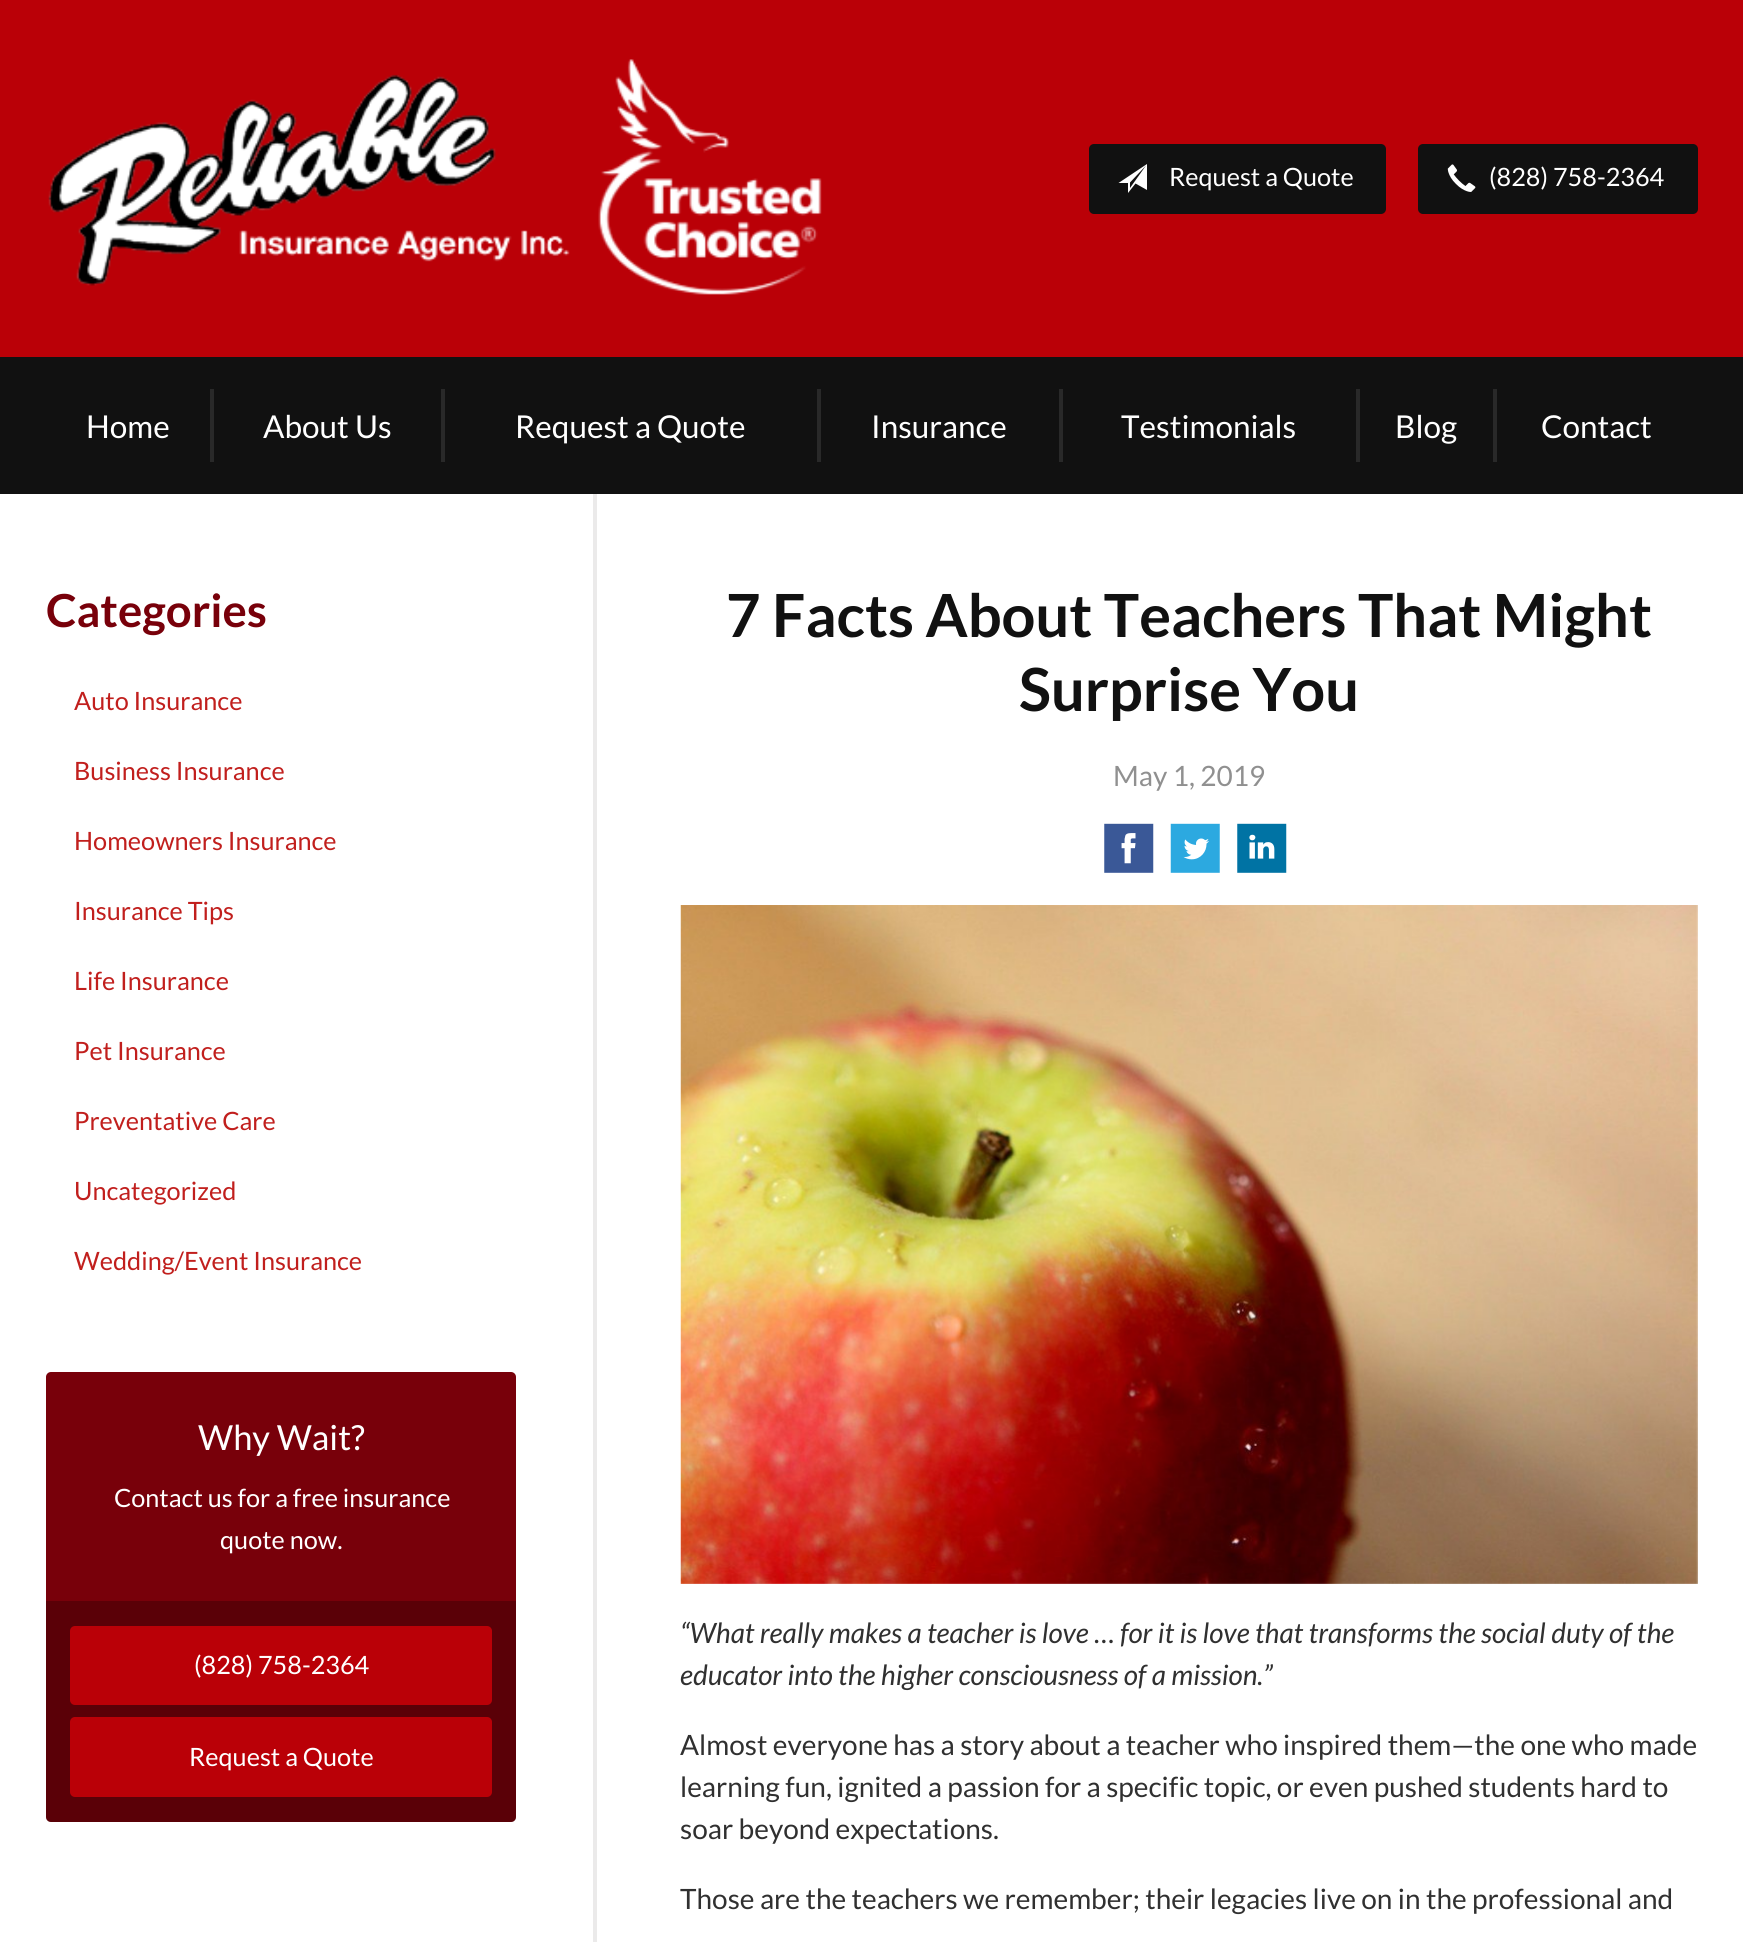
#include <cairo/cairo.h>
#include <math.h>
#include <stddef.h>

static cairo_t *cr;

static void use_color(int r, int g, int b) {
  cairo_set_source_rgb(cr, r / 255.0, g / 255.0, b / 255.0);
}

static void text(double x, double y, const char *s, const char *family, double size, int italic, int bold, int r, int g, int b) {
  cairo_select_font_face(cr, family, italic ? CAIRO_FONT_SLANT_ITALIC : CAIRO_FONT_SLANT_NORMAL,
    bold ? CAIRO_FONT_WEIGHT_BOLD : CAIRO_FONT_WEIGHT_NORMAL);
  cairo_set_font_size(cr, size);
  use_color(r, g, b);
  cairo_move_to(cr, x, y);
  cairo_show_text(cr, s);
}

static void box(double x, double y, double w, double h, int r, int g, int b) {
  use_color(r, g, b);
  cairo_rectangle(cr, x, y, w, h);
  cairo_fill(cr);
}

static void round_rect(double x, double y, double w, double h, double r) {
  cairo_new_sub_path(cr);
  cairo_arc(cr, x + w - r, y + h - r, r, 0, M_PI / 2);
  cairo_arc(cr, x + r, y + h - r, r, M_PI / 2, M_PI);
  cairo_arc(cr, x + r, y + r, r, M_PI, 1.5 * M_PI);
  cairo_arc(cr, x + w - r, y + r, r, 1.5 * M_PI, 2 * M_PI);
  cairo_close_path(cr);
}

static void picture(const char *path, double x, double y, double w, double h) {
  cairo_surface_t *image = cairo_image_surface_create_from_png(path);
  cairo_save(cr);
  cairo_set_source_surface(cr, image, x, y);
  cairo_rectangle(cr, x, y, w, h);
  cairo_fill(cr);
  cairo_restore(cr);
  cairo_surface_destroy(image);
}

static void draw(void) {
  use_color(17, 17, 17);
  cairo_paint(cr);
  box(0, 0, 1743, 357, 186, 0, 7);
  picture("img_01.png", 48, 59, 774, 236);
  use_color(17, 17, 17);
  round_rect(1089, 144, 297, 70, 5);
  cairo_fill(cr);
  use_color(255, 255, 255);
  cairo_new_path(cr);
  cairo_move_to(cr, 1118.5, 183);
  cairo_line_to(cr, 1128, 183);
  cairo_line_to(cr, 1128, 193);
  cairo_line_to(cr, 1135.5, 183.5);
  cairo_line_to(cr, 1147, 190);
  cairo_line_to(cr, 1147, 164);
  cairo_close_path(cr);
  cairo_move_to(cr, 1130, 188);
  cairo_line_to(cr, 1130, 182.5);
  cairo_line_to(cr, 1146, 165.5);
  cairo_close_path(cr);
  cairo_fill(cr);
  use_color(17, 17, 17);
  round_rect(1418, 144, 280, 70, 5);
  cairo_fill(cr);
  picture("img_02.png", 1447, 164, 29, 28);
  box(210, 389, 4, 73, 41, 41, 41);
  box(441, 389, 4, 73, 41, 41, 41);
  box(817, 389, 4, 73, 41, 41, 41);
  box(1059, 389, 4, 73, 41, 41, 41);
  box(1356, 389, 4, 73, 41, 41, 41);
  box(1493, 389, 4, 73, 41, 41, 41);
  box(0, 494, 1743, 1448, 255, 255, 255);
  box(593, 494, 4, 1448, 235, 234, 234);
  use_color(120, 0, 10);
  round_rect(46, 1372, 470, 450, 5);
  cairo_fill(cr);
  cairo_set_source_rgba(cr, 0, 0, 0, 0.25);
  cairo_new_path(cr);
  cairo_move_to(cr, 46, 1601);
  cairo_line_to(cr, 516, 1601);
  cairo_line_to(cr, 516, 1817);
  cairo_curve_to(cr, 516, 1820, 514, 1822, 511, 1822);
  cairo_line_to(cr, 51, 1822);
  cairo_curve_to(cr, 48, 1822, 46, 1820, 46, 1817);
  cairo_close_path(cr);
  cairo_fill(cr);
  use_color(186, 0, 7);
  round_rect(70, 1626, 422, 79, 5);
  cairo_fill(cr);
  round_rect(70, 1717, 422, 80, 5);
  cairo_fill(cr);
  picture("img_03.png", 1104, 823, 50, 50);
  picture("img_04.png", 1170, 823, 50, 50);
  picture("img_05.png", 1237, 823, 50, 50);
  picture("img_06.png", 680, 905, 1018, 679);
  text(1169, 186, "Request a Quote", "Lato", 25.25, 0, 0, 255, 255, 255);
  text(1489, 186, "(828) 758-2364", "Lato", 25.25, 0, 0, 255, 255, 255);
  text(86, 438, "Home", "Lato", 31.5, 0, 0, 255, 255, 255);
  text(263, 438, "About Us", "Lato", 31.5, 0, 0, 255, 255, 255);
  text(515, 438, "Request a Quote", "Lato", 31.5, 0, 0, 255, 255, 255);
  text(871, 438, "Insurance", "Lato", 31.5, 0, 0, 255, 255, 255);
  text(1121, 438, "Testimonials", "Lato", 31.5, 0, 0, 255, 255, 255);
  text(1395, 438, "Blog", "Lato", 31.5, 0, 0, 255, 255, 255);
  text(1541, 438, "Contact", "Lato", 31.5, 0, 0, 255, 255, 255);
  text(46, 627, "Categories", "Lato", 45.5, 0, 1, 120, 0, 10);
  text(74, 710, "Auto Insurance", "Lato", 25.25, 0, 0, 193, 31, 29);
  text(74, 780, "Business Insurance", "Lato", 25.25, 0, 0, 193, 31, 29);
  text(74, 850, "Homeowners Insurance", "Lato", 25.25, 0, 0, 193, 31, 29);
  text(74, 920, "Insurance Tips", "Lato", 25.25, 0, 0, 193, 31, 29);
  text(74, 990, "Life Insurance", "Lato", 25.25, 0, 0, 193, 31, 29);
  text(74, 1060, "Pet Insurance", "Lato", 25.25, 0, 0, 193, 31, 29);
  text(74, 1130, "Preventative Care", "Lato", 25.25, 0, 0, 193, 31, 29);
  text(74, 1200, "Uncategorized", "Lato", 25.25, 0, 0, 193, 31, 29);
  text(74, 1270, "Wedding/Event Insurance", "Lato", 25.25, 0, 0, 193, 31, 29);
  text(198, 1450, "Why Wait?", "Lato", 34.5, 0, 0, 255, 255, 255);
  text(114, 1507, "Contact us for a free insurance", "Lato", 25.25, 0, 0, 255, 255, 255);
  text(220, 1549, "quote now.", "Lato", 25.25, 0, 0, 255, 255, 255);
  text(194, 1674, "(828) 758-2364", "Lato", 25.25, 0, 0, 255, 255, 255);
  text(189, 1766, "Request a Quote", "Lato", 25.25, 0, 0, 255, 255, 255);
  text(726, 637, "7 Facts About Teachers That Might", "Lato", 59.5, 0, 1, 17, 17, 17);
  text(1019, 711, "Surprise You", "Lato", 59.5, 0, 1, 17, 17, 17);
  text(1113, 786, "May 1, 2019", "Lato", 28, 0, 0, 144, 144, 144);
  text(680, 1643, "“What really makes a teacher is love … for it is love that transforms the social duty of the", "Lato", 28, 1, 0, 48, 48, 48);
  text(680, 1685, "educator into the higher consciousness of a mission.”", "Lato", 28, 1, 0, 48, 48, 48);
  text(680, 1755, "Almost everyone has a story about a teacher who inspired them—the one who made", "Lato", 28, 0, 0, 48, 48, 48);
  text(680, 1797, "learning fun, ignited a passion for a specific topic, or even pushed students hard to", "Lato", 28, 0, 0, 48, 48, 48);
  text(680, 1839, "soar beyond expectations.", "Lato", 28, 0, 0, 48, 48, 48);
  text(680, 1909, "Those are the teachers we remember; their legacies live on in the professional and", "Lato", 28, 0, 0, 48, 48, 48);
}

int main(void) {
  cairo_surface_t *surface = cairo_image_surface_create(CAIRO_FORMAT_RGB24, 1743, 1942);
  cr = cairo_create(surface);
  cairo_font_options_t *options = cairo_font_options_create();
  cairo_font_options_set_hint_metrics(options, CAIRO_HINT_METRICS_OFF);
  cairo_font_options_set_hint_style(options, CAIRO_HINT_STYLE_NONE);
  cairo_set_font_options(cr, options);
  cairo_set_miter_limit(cr, 4);
  draw();
  cairo_surface_write_to_png(surface, "out.png");
  cairo_font_options_destroy(options);
  cairo_destroy(cr);
  cairo_surface_destroy(surface);
  return 0;
}
